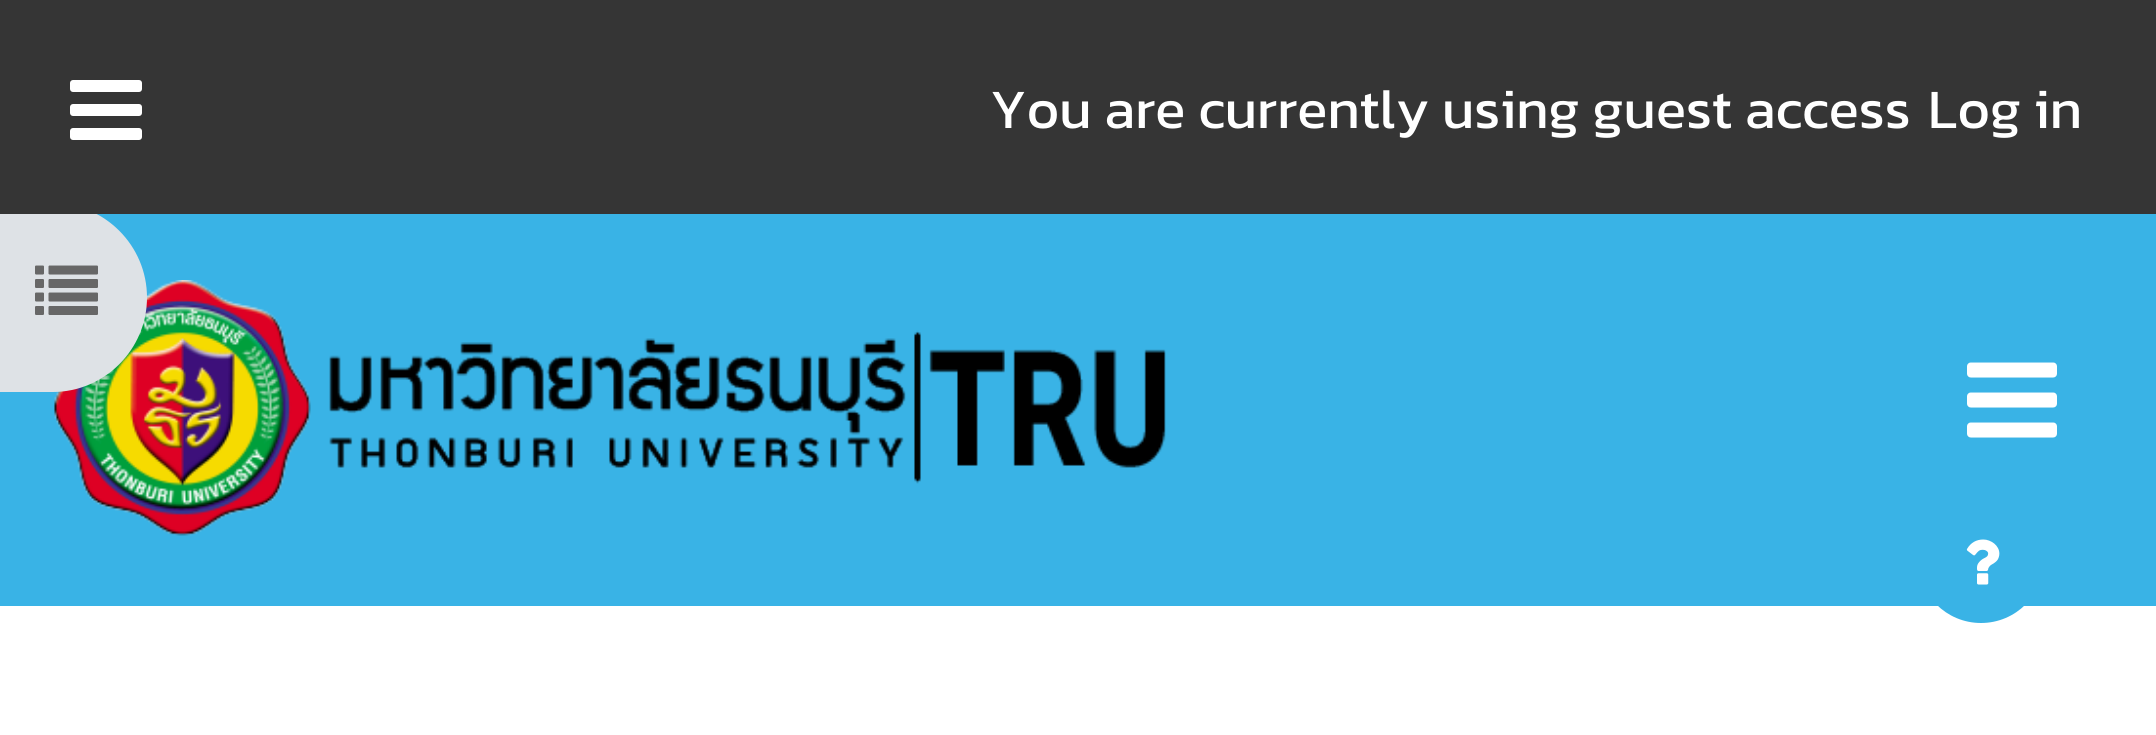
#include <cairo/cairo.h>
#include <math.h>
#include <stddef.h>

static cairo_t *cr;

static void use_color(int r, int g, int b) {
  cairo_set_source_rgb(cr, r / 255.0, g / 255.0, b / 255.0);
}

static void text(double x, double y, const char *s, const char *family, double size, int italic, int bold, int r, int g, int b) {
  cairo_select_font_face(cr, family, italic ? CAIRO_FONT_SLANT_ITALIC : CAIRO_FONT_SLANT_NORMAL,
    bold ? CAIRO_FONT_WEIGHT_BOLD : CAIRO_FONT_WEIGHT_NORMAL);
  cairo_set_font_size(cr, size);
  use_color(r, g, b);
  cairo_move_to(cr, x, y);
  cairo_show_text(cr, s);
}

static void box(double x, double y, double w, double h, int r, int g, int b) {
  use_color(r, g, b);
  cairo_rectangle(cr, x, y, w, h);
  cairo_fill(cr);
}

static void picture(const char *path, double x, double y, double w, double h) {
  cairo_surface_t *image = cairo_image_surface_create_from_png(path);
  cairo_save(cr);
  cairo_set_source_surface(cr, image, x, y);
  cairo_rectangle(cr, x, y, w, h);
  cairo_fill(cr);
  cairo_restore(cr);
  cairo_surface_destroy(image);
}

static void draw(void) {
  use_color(255, 255, 255);
  cairo_paint(cr);
  box(0, 214, 2156, 392, 57, 179, 230);
  picture("img_04.png", 54, 280, 1112, 256);
  use_color(222, 226, 230);
  cairo_new_path(cr);
  cairo_move_to(cr, 0, 203);
  cairo_line_to(cr, 52.5, 203);
  cairo_curve_to(cr, 104.5, 203, 147, 245.5, 147, 297.5);
  cairo_curve_to(cr, 147, 349.5, 104.5, 392, 52.5, 392);
  cairo_line_to(cr, 0, 392);
  cairo_close_path(cr);
  cairo_fill(cr);
  box(0, 0, 2156, 214, 53, 53, 53);
  picture("img_01.png", 70, 80, 72, 60);
  picture("img_02.png", 35, 265, 63, 50);
  use_color(57, 179, 230);
  cairo_arc(cr, 1981, 560, 63, 0, 2 * M_PI);
  cairo_fill(cr);
  picture("img_03.png", 1966, 539, 34, 46);
  picture("img_05.png", 1967, 362, 90, 76);
  text(990, 128, "You are currently using guest access", "Kanit", 56, 0, 0, 255, 255, 255);
  text(1928, 128, "Log in", "Kanit", 56, 0, 0, 255, 255, 255);
}

int main(void) {
  cairo_surface_t *surface = cairo_image_surface_create(CAIRO_FORMAT_RGB24, 2156, 735);
  cr = cairo_create(surface);
  cairo_font_options_t *options = cairo_font_options_create();
  cairo_font_options_set_hint_metrics(options, CAIRO_HINT_METRICS_OFF);
  cairo_font_options_set_hint_style(options, CAIRO_HINT_STYLE_NONE);
  cairo_set_font_options(cr, options);
  cairo_set_miter_limit(cr, 4);
  draw();
  cairo_surface_write_to_png(surface, "out.png");
  cairo_font_options_destroy(options);
  cairo_destroy(cr);
  cairo_surface_destroy(surface);
  return 0;
}
